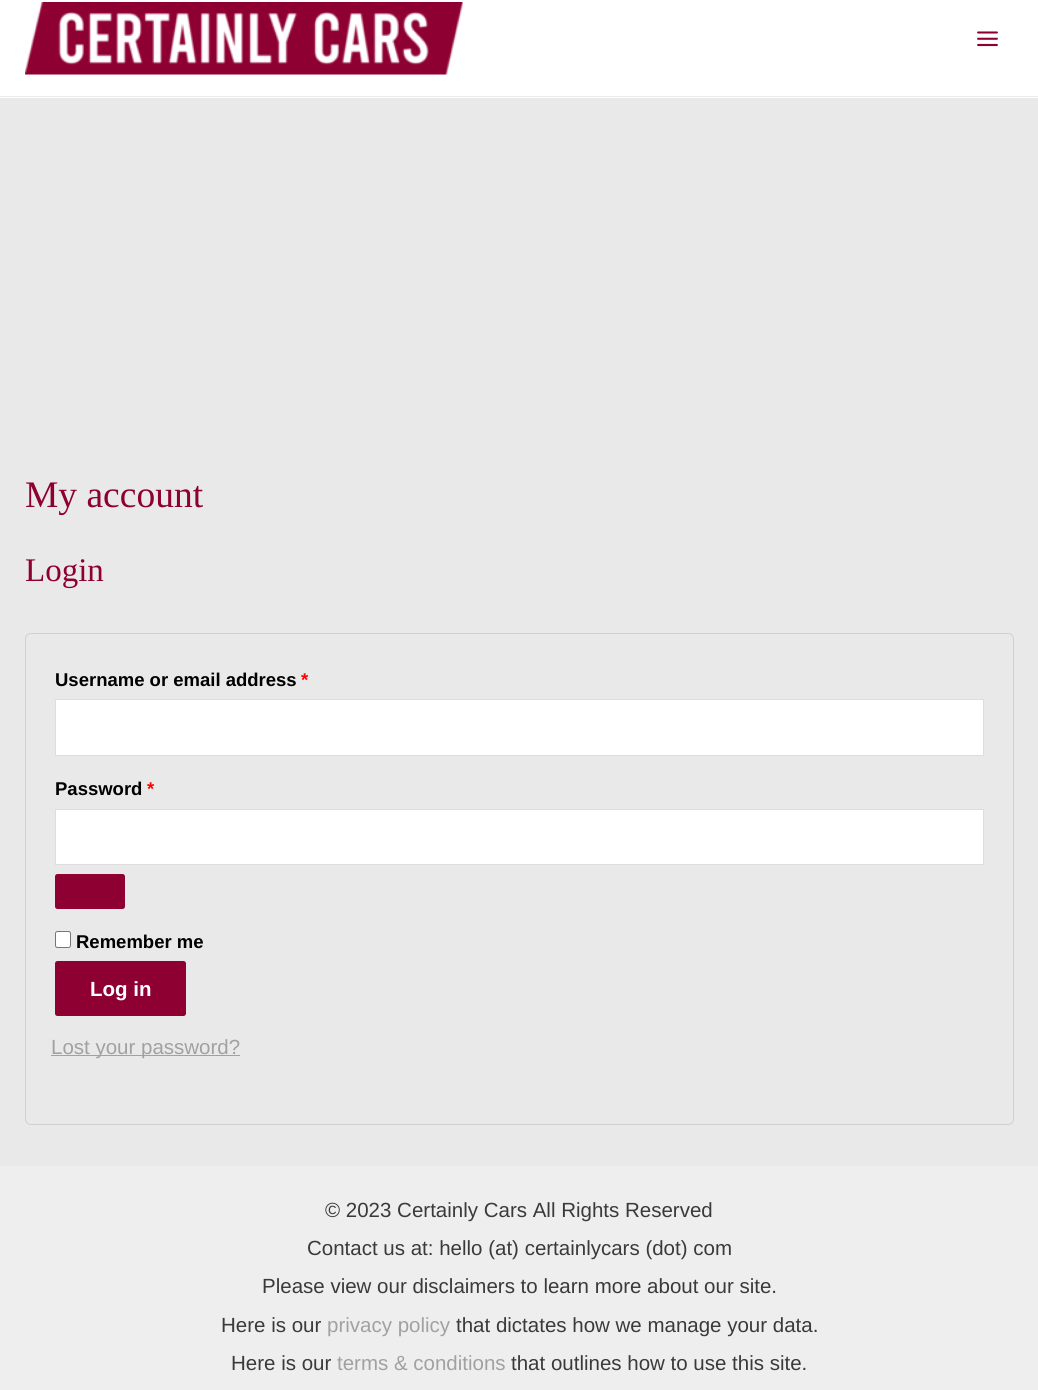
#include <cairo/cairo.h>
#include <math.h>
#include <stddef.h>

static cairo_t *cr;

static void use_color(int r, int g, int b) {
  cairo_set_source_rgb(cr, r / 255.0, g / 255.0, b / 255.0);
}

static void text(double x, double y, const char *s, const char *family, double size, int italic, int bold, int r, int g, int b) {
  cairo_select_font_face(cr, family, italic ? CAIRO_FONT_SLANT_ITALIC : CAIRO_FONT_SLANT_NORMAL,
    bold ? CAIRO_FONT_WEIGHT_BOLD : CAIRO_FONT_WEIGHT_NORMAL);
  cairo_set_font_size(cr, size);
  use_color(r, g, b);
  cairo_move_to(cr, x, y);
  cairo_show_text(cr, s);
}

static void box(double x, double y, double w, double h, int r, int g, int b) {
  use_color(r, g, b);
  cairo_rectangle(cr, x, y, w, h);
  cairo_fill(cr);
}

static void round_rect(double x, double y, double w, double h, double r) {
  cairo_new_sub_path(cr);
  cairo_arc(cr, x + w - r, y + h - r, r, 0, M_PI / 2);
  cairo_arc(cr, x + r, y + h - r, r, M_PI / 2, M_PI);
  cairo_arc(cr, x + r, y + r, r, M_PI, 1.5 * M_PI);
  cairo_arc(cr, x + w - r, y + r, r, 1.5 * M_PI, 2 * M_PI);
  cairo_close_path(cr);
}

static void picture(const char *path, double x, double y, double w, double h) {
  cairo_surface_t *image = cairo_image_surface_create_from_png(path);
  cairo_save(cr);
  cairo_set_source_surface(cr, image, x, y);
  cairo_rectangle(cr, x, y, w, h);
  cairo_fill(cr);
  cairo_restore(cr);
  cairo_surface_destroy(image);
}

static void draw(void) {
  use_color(233, 233, 233);
  cairo_paint(cr);
  box(0, 0, 1038, 98, 255, 255, 255);
  box(0, 96, 1038, 1, 234, 234, 234);
  picture("img_01.png", 25, 2, 438, 73);
  picture("img_02.png", 977, 31, 21, 16);
  round_rect(25.5, 633.5, 988, 491, 5.5);
  use_color(211, 206, 210);
  cairo_set_line_width(cr, 1);
  cairo_stroke(cr);
  use_color(255, 255, 255);
  cairo_rectangle(cr, 55.5, 699.5, 928, 56);
  cairo_fill_preserve(cr);
  use_color(221, 221, 221);
  cairo_stroke(cr);
  use_color(255, 255, 255);
  cairo_rectangle(cr, 55.5, 809.5, 928, 55);
  cairo_fill_preserve(cr);
  use_color(221, 221, 221);
  cairo_stroke(cr);
  use_color(143, 0, 50);
  round_rect(55, 874, 70, 35, 2.5);
  cairo_fill(cr);
  use_color(255, 255, 255);
  round_rect(55.5, 931.5, 15, 16, 2);
  cairo_fill_preserve(cr);
  use_color(118, 118, 118);
  cairo_stroke(cr);
  use_color(143, 0, 50);
  round_rect(55, 961, 131, 55, 2.5);
  cairo_fill(cr);
  box(51, 1055, 189, 1, 161, 161, 161);
  box(0, 1166, 1038, 224, 238, 238, 238);
  text(25, 507, "My account", "Liberation Serif", 37.5, 0, 0, 143, 0, 50);
  text(25, 581, "Login", "Liberation Serif", 33, 0, 0, 143, 0, 50);
  text(55, 686, "Username or email address", "Liberation Sans", 18.5, 0, 1, 0, 0, 0);
  text(301, 686, "*", "Liberation Sans", 18.5, 0, 1, 255, 0, 0);
  text(55, 795, "Password", "Liberation Sans", 18.5, 0, 1, 0, 0, 0);
  text(147, 795, "*", "Liberation Sans", 18.5, 0, 1, 255, 0, 0);
  text(76, 948, "Remember me", "Liberation Sans", 18.5, 0, 1, 0, 0, 0);
  text(90, 996, "Log in", "Liberation Sans", 20.5, 0, 1, 255, 255, 255);
  text(51, 1054, "Lost your password?", "Liberation Sans", 20.5, 0, 0, 161, 161, 161);
  text(325, 1217, "© 2023 Certainly Cars All Rights Reserved", "Liberation Sans", 20.5, 0, 0, 58, 58, 58);
  text(307, 1255, "Contact us at: hello (at) certainlycars (dot) com", "Liberation Sans", 20.5, 0, 0, 58, 58, 58);
  text(262, 1293, "Please view our disclaimers to learn more about our site.", "Liberation Sans", 20.5, 0, 0, 58, 58, 58);
  text(221, 1332, "Here is our", "Liberation Sans", 20.5, 0, 0, 58, 58, 58);
  text(327, 1332, "privacy policy", "Liberation Sans", 20.5, 0, 0, 161, 161, 161);
  text(456, 1332, "that dictates how we manage your data.", "Liberation Sans", 20.5, 0, 0, 58, 58, 58);
  text(231, 1370, "Here is our", "Liberation Sans", 20.5, 0, 0, 58, 58, 58);
  text(337, 1370, "terms & conditions", "Liberation Sans", 20.5, 0, 0, 161, 161, 161);
  text(511, 1370, "that outlines how to use this site.", "Liberation Sans", 20.5, 0, 0, 58, 58, 58);
}

int main(void) {
  cairo_surface_t *surface = cairo_image_surface_create(CAIRO_FORMAT_RGB24, 1038, 1390);
  cr = cairo_create(surface);
  cairo_font_options_t *options = cairo_font_options_create();
  cairo_font_options_set_hint_metrics(options, CAIRO_HINT_METRICS_OFF);
  cairo_font_options_set_hint_style(options, CAIRO_HINT_STYLE_NONE);
  cairo_set_font_options(cr, options);
  cairo_set_miter_limit(cr, 4);
  draw();
  cairo_surface_write_to_png(surface, "out.png");
  cairo_font_options_destroy(options);
  cairo_destroy(cr);
  cairo_surface_destroy(surface);
  return 0;
}
